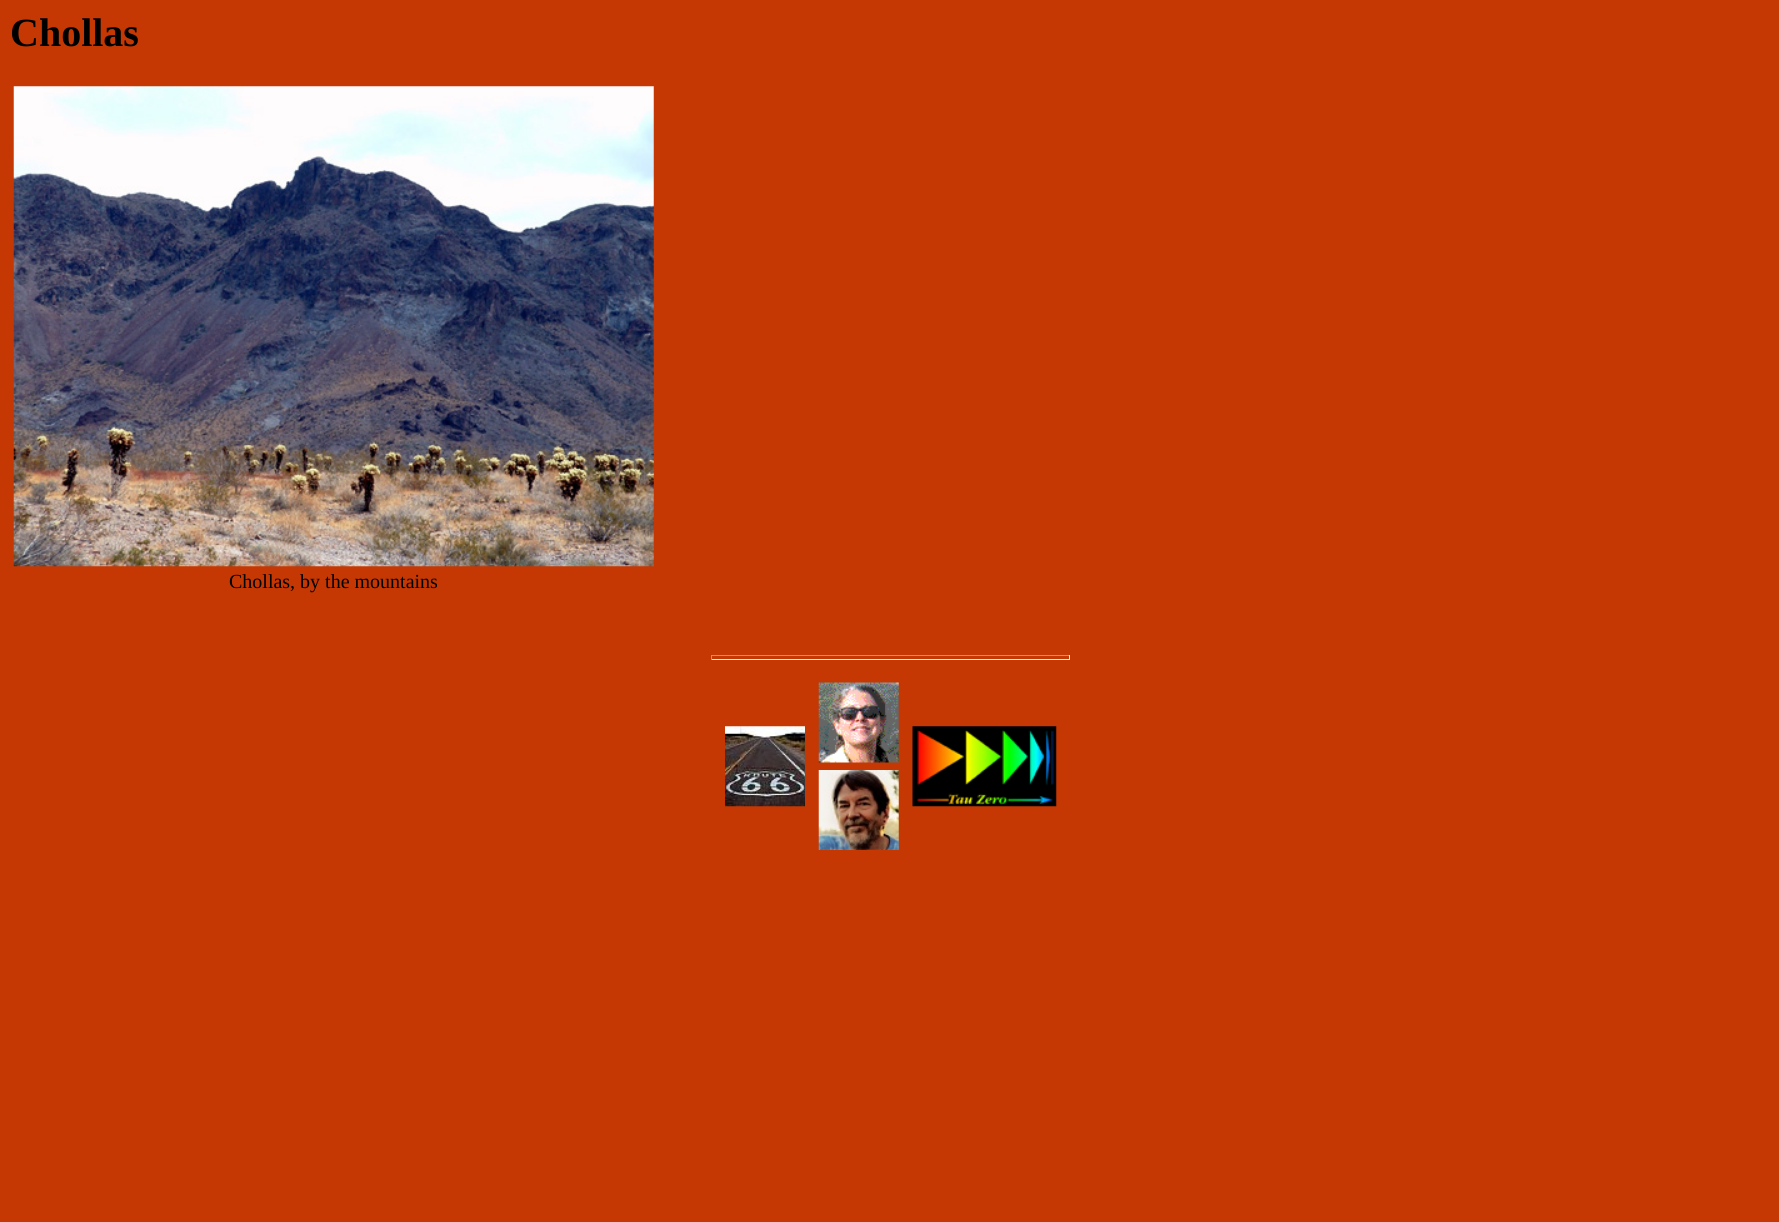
#include <cairo/cairo.h>
#include <math.h>
#include <stddef.h>

static cairo_t *cr;

static void use_color(int r, int g, int b) {
  cairo_set_source_rgb(cr, r / 255.0, g / 255.0, b / 255.0);
}

static void text(double x, double y, const char *s, const char *family, double size, int italic, int bold, int r, int g, int b) {
  cairo_select_font_face(cr, family, italic ? CAIRO_FONT_SLANT_ITALIC : CAIRO_FONT_SLANT_NORMAL,
    bold ? CAIRO_FONT_WEIGHT_BOLD : CAIRO_FONT_WEIGHT_NORMAL);
  cairo_set_font_size(cr, size);
  use_color(r, g, b);
  cairo_move_to(cr, x, y);
  cairo_show_text(cr, s);
}

static void box(double x, double y, double w, double h, int r, int g, int b) {
  use_color(r, g, b);
  cairo_rectangle(cr, x, y, w, h);
  cairo_fill(cr);
}

static void picture(const char *path, double x, double y, double w, double h) {
  cairo_surface_t *image = cairo_image_surface_create_from_png(path);
  cairo_save(cr);
  cairo_set_source_surface(cr, image, x, y);
  cairo_rectangle(cr, x, y, w, h);
  cairo_fill(cr);
  cairo_restore(cr);
  cairo_surface_destroy(image);
}

static void draw(void) {
  use_color(197, 56, 3);
  cairo_paint(cr);
  picture("img_01.png", 13, 86, 641, 481);
  box(711, 655, 359, 1, 159, 159, 159);
  box(1069, 655, 1, 5, 238, 238, 238);
  box(711, 659, 359, 1, 238, 238, 238);
  box(711, 655, 1, 5, 159, 159, 159);
  picture("img_02.png", 725, 726, 80, 81);
  picture("img_03.png", 818, 682, 81, 81);
  picture("img_04.png", 818, 770, 81, 80);
  picture("img_05.png", 912, 726, 145, 81);
  text(10, 46, "Chollas", "Liberation Serif", 40, 0, 1, 0, 0, 0);
  text(229, 588, "Chollas, by the mountains", "Liberation Serif", 20, 0, 0, 0, 0, 0);
}

int main(void) {
  cairo_surface_t *surface = cairo_image_surface_create(CAIRO_FORMAT_RGB24, 1779, 1222);
  cr = cairo_create(surface);
  cairo_font_options_t *options = cairo_font_options_create();
  cairo_font_options_set_hint_metrics(options, CAIRO_HINT_METRICS_OFF);
  cairo_font_options_set_hint_style(options, CAIRO_HINT_STYLE_NONE);
  cairo_set_font_options(cr, options);
  cairo_set_miter_limit(cr, 4);
  draw();
  cairo_surface_write_to_png(surface, "out.png");
  cairo_font_options_destroy(options);
  cairo_destroy(cr);
  cairo_surface_destroy(surface);
  return 0;
}
